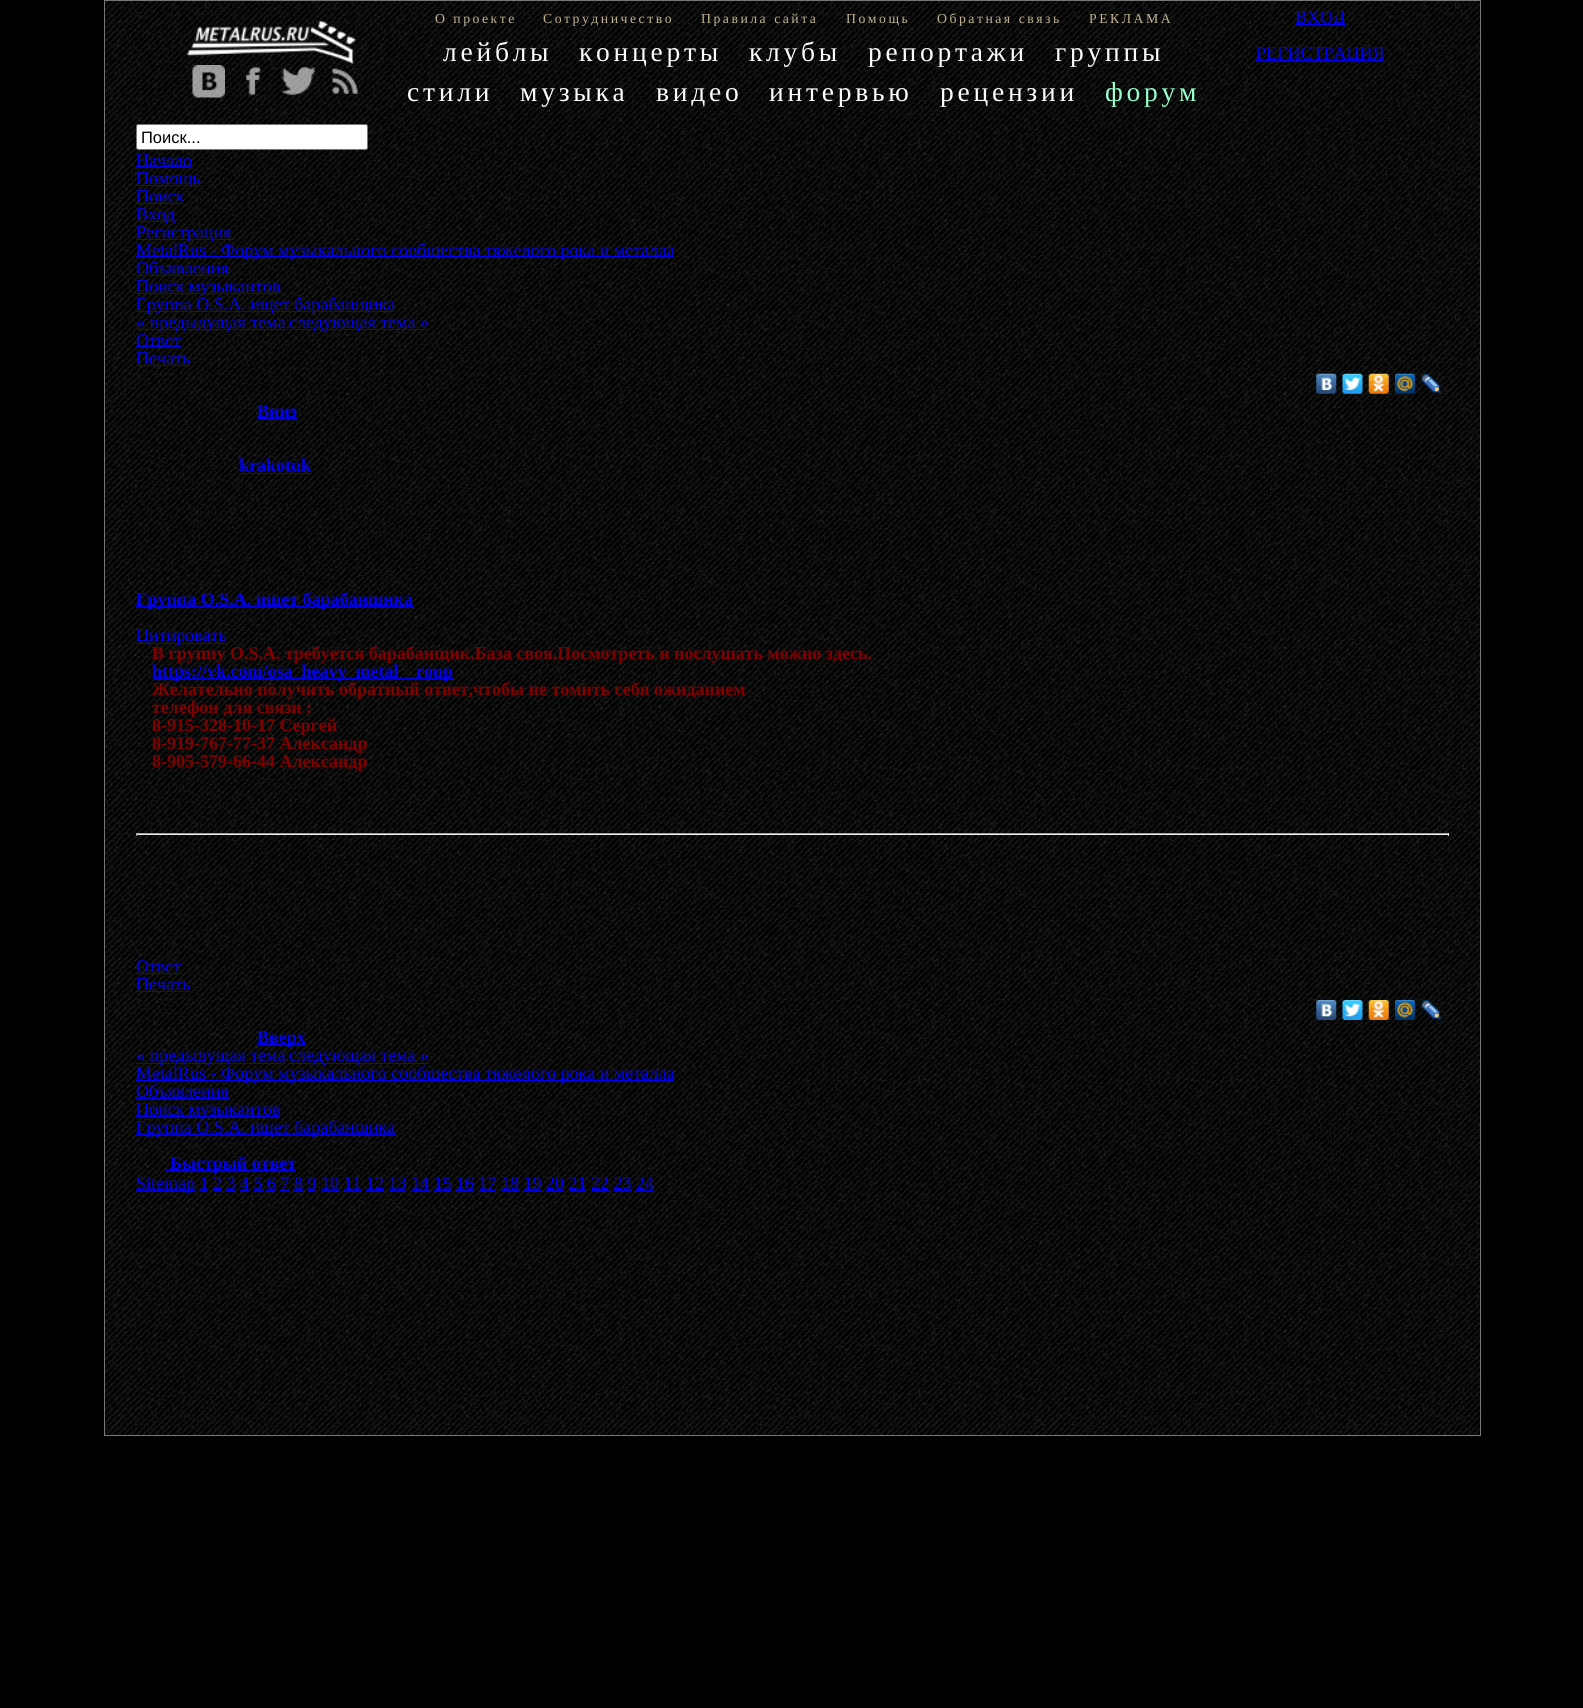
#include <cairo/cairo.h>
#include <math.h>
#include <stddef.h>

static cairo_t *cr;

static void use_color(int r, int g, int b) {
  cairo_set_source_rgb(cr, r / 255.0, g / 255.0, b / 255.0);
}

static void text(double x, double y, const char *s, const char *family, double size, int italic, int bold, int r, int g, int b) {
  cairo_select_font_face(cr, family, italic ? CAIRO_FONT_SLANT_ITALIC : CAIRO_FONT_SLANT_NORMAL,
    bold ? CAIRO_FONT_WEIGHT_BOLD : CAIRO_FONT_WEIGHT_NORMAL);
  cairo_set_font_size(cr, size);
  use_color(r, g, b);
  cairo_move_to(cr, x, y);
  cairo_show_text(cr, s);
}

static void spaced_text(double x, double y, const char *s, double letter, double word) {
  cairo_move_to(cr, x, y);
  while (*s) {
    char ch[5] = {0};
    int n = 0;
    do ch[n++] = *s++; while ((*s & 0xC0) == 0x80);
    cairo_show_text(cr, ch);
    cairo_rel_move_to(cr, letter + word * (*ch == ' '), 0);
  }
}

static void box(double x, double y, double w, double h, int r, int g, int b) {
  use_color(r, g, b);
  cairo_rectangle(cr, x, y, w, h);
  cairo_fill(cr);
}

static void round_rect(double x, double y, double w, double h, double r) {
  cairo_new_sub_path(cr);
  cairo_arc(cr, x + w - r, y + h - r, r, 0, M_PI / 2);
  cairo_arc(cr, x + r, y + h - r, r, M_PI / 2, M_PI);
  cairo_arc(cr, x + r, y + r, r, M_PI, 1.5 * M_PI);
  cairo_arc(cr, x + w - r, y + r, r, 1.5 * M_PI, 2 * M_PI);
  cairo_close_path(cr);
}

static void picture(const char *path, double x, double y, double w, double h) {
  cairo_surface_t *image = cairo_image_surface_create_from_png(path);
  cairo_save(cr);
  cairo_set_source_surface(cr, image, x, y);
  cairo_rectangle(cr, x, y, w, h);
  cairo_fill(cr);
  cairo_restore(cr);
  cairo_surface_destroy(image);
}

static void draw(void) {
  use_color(0, 0, 0);
  cairo_paint(cr);
  picture("img_01.png", 103, 0, 1379, 1437);
  cairo_rectangle(cr, 104.5, 0.5, 1376, 1435);
  use_color(119, 119, 119);
  cairo_set_line_width(cr, 1);
  cairo_stroke(cr);
  picture("img_02.png", 187, 21, 170, 43);
  picture("img_03.png", 192, 65, 33, 33);
  picture("img_04.png", 246, 67, 15, 29);
  picture("img_05.png", 282, 66, 33, 30);
  picture("img_06.png", 332, 68, 26, 26);
  box(1295, 24, 50, 1, 0, 0, 238);
  box(1256, 60, 128, 1, 0, 0, 238);
  use_color(255, 255, 255);
  round_rect(136.5, 124.5, 231, 25, 2);
  cairo_fill_preserve(cr);
  use_color(118, 118, 118);
  cairo_stroke(cr);
  box(136, 166, 55, 1, 0, 0, 238);
  box(136, 185, 64, 1, 0, 0, 238);
  box(136, 203, 48, 1, 0, 0, 238);
  box(136, 221, 39, 1, 0, 0, 238);
  box(136, 239, 95, 1, 0, 0, 238);
  box(136, 256, 538, 1, 0, 0, 238);
  box(136, 275, 93, 1, 0, 0, 238);
  box(136, 293, 144, 1, 0, 0, 238);
  box(136, 311, 259, 1, 0, 0, 238);
  box(136, 329, 149, 1, 0, 0, 238);
  box(290, 329, 139, 1, 0, 0, 238);
  box(136, 346, 45, 1, 0, 0, 238);
  box(136, 365, 54, 1, 0, 0, 238);
  picture("img_07.png", 1316, 373, 21, 21);
  picture("img_08.png", 1342, 373, 21, 21);
  picture("img_09.png", 1368, 373, 21, 21);
  picture("img_10.png", 1395, 373, 20, 21);
  picture("img_11.png", 1421, 373, 21, 21);
  box(258, 418, 40, 1, 0, 0, 238);
  box(239, 473, 72, 1, 0, 0, 238);
  box(136, 606, 277, 1, 0, 0, 238);
  box(136, 643, 90, 1, 0, 0, 238);
  box(153, 678, 301, 1, 0, 0, 238);
  box(136, 833, 1313, 1, 159, 159, 159);
  box(1448, 833, 1, 3, 238, 238, 238);
  box(136, 834, 1313, 1, 238, 238, 238);
  box(136, 833, 1, 3, 159, 159, 159);
  box(136, 973, 45, 1, 0, 0, 238);
  box(136, 991, 54, 1, 0, 0, 238);
  picture("img_12.png", 1316, 1000, 21, 20);
  picture("img_13.png", 1342, 1000, 21, 20);
  picture("img_14.png", 1368, 1000, 21, 20);
  picture("img_15.png", 1395, 1000, 20, 20);
  picture("img_16.png", 1421, 1000, 21, 20);
  box(258, 1044, 48, 1, 0, 0, 238);
  box(136, 1063, 149, 1, 0, 0, 238);
  box(290, 1063, 139, 1, 0, 0, 238);
  box(136, 1080, 538, 1, 0, 0, 238);
  box(136, 1098, 93, 1, 0, 0, 238);
  box(136, 1116, 144, 1, 0, 0, 238);
  box(136, 1134, 259, 1, 0, 0, 238);
  box(166, 1170, 130, 1, 0, 0, 238);
  box(136, 1190, 59, 1, 0, 0, 238);
  box(199, 1190, 9, 1, 0, 0, 238);
  box(213, 1190, 8, 1, 0, 0, 238);
  box(226, 1190, 9, 1, 0, 0, 238);
  box(240, 1190, 9, 1, 0, 0, 238);
  box(254, 1190, 9, 1, 0, 0, 238);
  box(266, 1190, 10, 1, 0, 0, 238);
  box(280, 1190, 9, 1, 0, 0, 238);
  box(294, 1190, 9, 1, 0, 0, 238);
  box(308, 1190, 8, 1, 0, 0, 238);
  box(321, 1190, 18, 1, 0, 0, 238);
  box(344, 1190, 17, 1, 0, 0, 238);
  box(366, 1190, 18, 1, 0, 0, 238);
  box(389, 1190, 17, 1, 0, 0, 238);
  box(411, 1190, 18, 1, 0, 0, 238);
  box(434, 1190, 17, 1, 0, 0, 238);
  box(456, 1190, 18, 1, 0, 0, 238);
  box(479, 1190, 17, 1, 0, 0, 238);
  box(501, 1190, 18, 1, 0, 0, 238);
  box(524, 1190, 17, 1, 0, 0, 238);
  box(546, 1190, 18, 1, 0, 0, 238);
  box(569, 1190, 17, 1, 0, 0, 238);
  box(591, 1190, 18, 1, 0, 0, 238);
  box(614, 1190, 17, 1, 0, 0, 238);
  box(636, 1190, 18, 1, 0, 0, 238);
  cairo_select_font_face(cr, "Liberation Serif", CAIRO_FONT_SLANT_NORMAL, CAIRO_FONT_WEIGHT_NORMAL);
  cairo_set_font_size(cr, 13.75);
  use_color(193, 180, 149);
  spaced_text(435, 23, "О проекте", 2.5, 0);
  spaced_text(543, 23, "Сотрудничество", 2.5, 0);
  spaced_text(701, 23, "Правила сайта", 2.5, 0);
  spaced_text(846, 23, "Помощь", 2.5, 0);
  spaced_text(937, 23, "Обратная связь", 2.5, 0);
  spaced_text(1089, 23, "РЕКЛАМА", 2.5, 0);
  cairo_set_font_size(cr, 27.5);
  use_color(255, 255, 255);
  spaced_text(443, 61, "лейблы", 3.75, 0);
  spaced_text(579, 61, "концерты", 3.75, 0);
  spaced_text(749, 61, "клубы", 3.75, 0);
  spaced_text(868, 61, "репортажи", 3.75, 0);
  spaced_text(1055, 61, "группы", 3.75, 0);
  spaced_text(407, 101, "стили", 3.75, 0);
  spaced_text(520, 101, "музыка", 3.75, 0);
  spaced_text(656, 101, "видео", 3.75, 0);
  spaced_text(769, 101, "интервью", 3.75, 0);
  spaced_text(940, 101, "рецензии", 3.75, 0);
  use_color(153, 255, 204);
  spaced_text(1105, 101, "форум", 3.75, 0);
  text(1295, 23, "ВХОД", "Liberation Serif", 18, 0, 0, 0, 0, 238);
  text(1256, 59, "РЕГИСТРАЦИЯ", "Liberation Serif", 18, 0, 0, 0, 0, 238);
  text(141, 143, "Поиск...", "Liberation Sans", 16.5, 0, 0, 0, 0, 0);
  text(136, 166, "Начало", "Liberation Serif", 18, 0, 0, 0, 0, 238);
  text(136, 184, "Помощь", "Liberation Serif", 18, 0, 0, 0, 0, 238);
  text(136, 202, "Поиск", "Liberation Serif", 18, 0, 0, 0, 0, 238);
  text(136, 220, "Вход", "Liberation Serif", 18, 0, 0, 0, 0, 238);
  text(136, 238, "Регистрация", "Liberation Serif", 18, 0, 0, 0, 0, 238);
  text(136, 256, "MetalRus - Форум музыкального сообщества тяжелого рока и металла", "Liberation Serif", 18, 0, 0, 0, 0, 238);
  text(136, 274, "Объявления", "Liberation Serif", 18, 0, 0, 0, 0, 238);
  text(136, 292, "Поиск музыкантов", "Liberation Serif", 18, 0, 0, 0, 0, 238);
  text(136, 310, "Группа O.S.A. ищет барабанщика", "Liberation Serif", 18, 0, 0, 0, 0, 238);
  text(136, 328, "« предыдущая тема", "Liberation Serif", 18, 0, 0, 0, 0, 238);
  text(289, 328, "следующая тема »", "Liberation Serif", 18, 0, 0, 0, 0, 238);
  text(136, 346, "Ответ", "Liberation Serif", 18, 0, 0, 0, 0, 238);
  text(136, 364, "Печать", "Liberation Serif", 18, 0, 0, 0, 0, 238);
  text(257, 417, "Вниз", "Liberation Serif", 18, 0, 1, 0, 0, 238);
  text(239, 471, "krakotuk", "Liberation Serif", 18, 0, 1, 0, 0, 238);
  text(136, 605, "Группа O.S.A. ищет барабанщика", "Liberation Serif", 18, 0, 1, 0, 0, 238);
  text(136, 641, "Цитировать", "Liberation Serif", 18, 0, 0, 0, 0, 238);
  text(152, 659, "В группу O.S.A. требуется барабанщик.База своя.Посмотреть и послушать можно здесь.", "Liberation Serif", 18, 0, 1, 128, 0, 0);
  text(152, 677, "https://vk.com/osa_heavy_metal", "Liberation Serif", 18, 0, 1, 0, 0, 238);
  text(416, 677, "roup", "Liberation Serif", 18, 0, 1, 0, 0, 238);
  text(152, 695, "Желательно получить обратный ответ,чтобы не томить себя ожиданием", "Liberation Serif", 18, 0, 1, 128, 0, 0);
  text(152, 713, "телефон для связи :", "Liberation Serif", 18, 0, 1, 128, 0, 0);
  text(152, 731, "8-915-328-10-17 Сергей", "Liberation Serif", 18, 0, 1, 128, 0, 0);
  text(152, 749, "8-919-767-77-37 Александр", "Liberation Serif", 18, 0, 1, 128, 0, 0);
  text(152, 767, "8-905-579-66-44 Александр", "Liberation Serif", 18, 0, 1, 128, 0, 0);
  text(136, 972, "Ответ", "Liberation Serif", 18, 0, 0, 0, 0, 238);
  text(136, 990, "Печать", "Liberation Serif", 18, 0, 0, 0, 0, 238);
  text(257, 1043, "Вверх", "Liberation Serif", 18, 0, 1, 0, 0, 238);
  text(136, 1061, "« предыдущая тема", "Liberation Serif", 18, 0, 0, 0, 0, 238);
  text(289, 1061, "следующая тема »", "Liberation Serif", 18, 0, 0, 0, 0, 238);
  text(136, 1079, "MetalRus - Форум музыкального сообщества тяжелого рока и металла", "Liberation Serif", 18, 0, 0, 0, 0, 238);
  text(136, 1097, "Объявления", "Liberation Serif", 18, 0, 0, 0, 0, 238);
  text(136, 1115, "Поиск музыкантов", "Liberation Serif", 18, 0, 0, 0, 0, 238);
  text(136, 1133, "Группа O.S.A. ищет барабанщика", "Liberation Serif", 18, 0, 0, 0, 0, 238);
  text(170, 1169, "Быстрый ответ", "Liberation Serif", 18, 0, 1, 0, 0, 238);
  text(136, 1189, "Sitemap 1 2 3 4 5 6 7 8 9 10 11 12 13 14 15 16 17 18 19 20 21 22 23 24", "Liberation Serif", 18, 0, 0, 0, 0, 238);
}

int main(void) {
  cairo_surface_t *surface = cairo_image_surface_create(CAIRO_FORMAT_RGB24, 1583, 1708);
  cr = cairo_create(surface);
  cairo_font_options_t *options = cairo_font_options_create();
  cairo_font_options_set_hint_metrics(options, CAIRO_HINT_METRICS_OFF);
  cairo_font_options_set_hint_style(options, CAIRO_HINT_STYLE_NONE);
  cairo_set_font_options(cr, options);
  cairo_set_miter_limit(cr, 4);
  draw();
  cairo_surface_write_to_png(surface, "out.png");
  cairo_font_options_destroy(options);
  cairo_destroy(cr);
  cairo_surface_destroy(surface);
  return 0;
}
